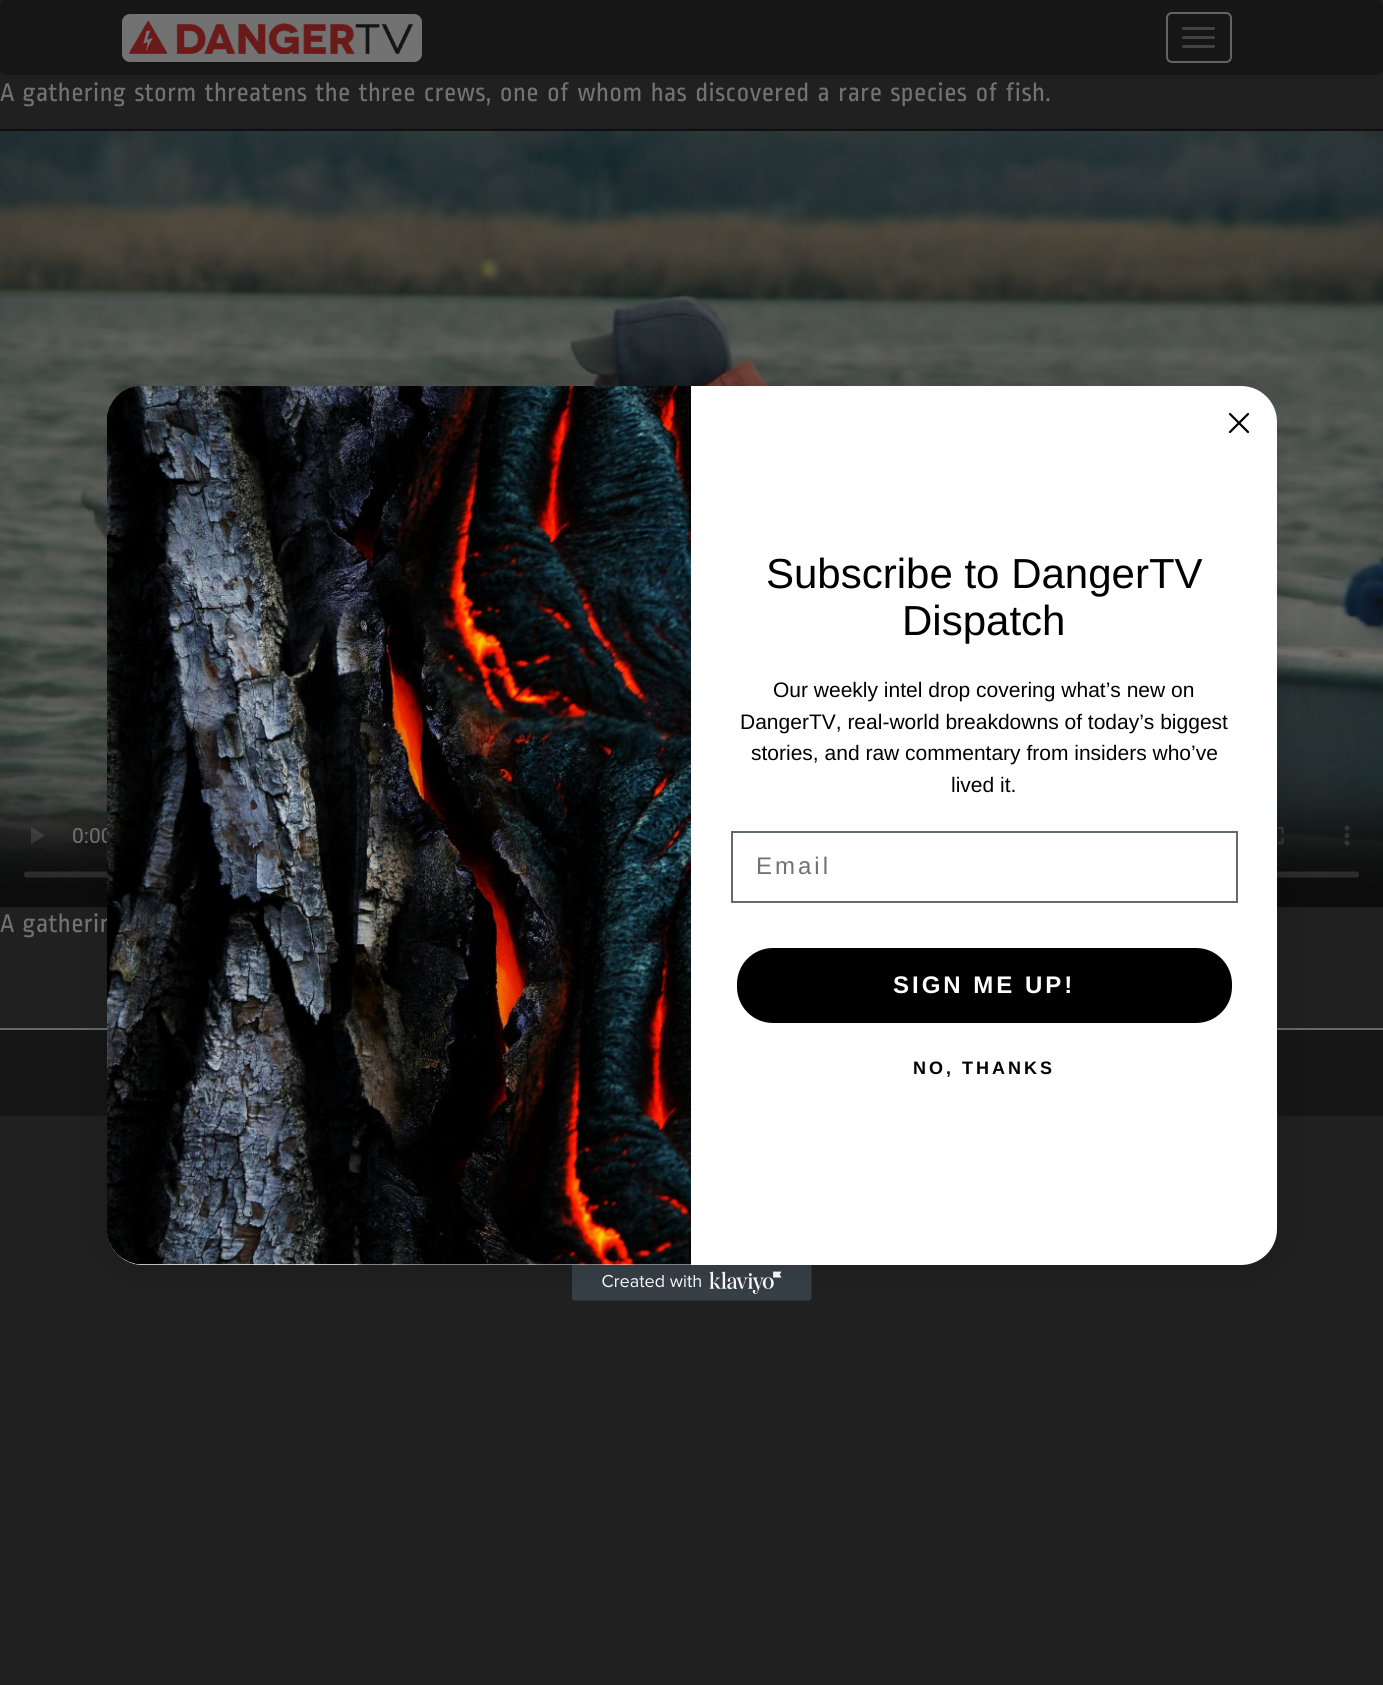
#include <cairo/cairo.h>
#include <math.h>
#include <stddef.h>

static cairo_t *cr;

static void use_color(int r, int g, int b) {
  cairo_set_source_rgb(cr, r / 255.0, g / 255.0, b / 255.0);
}

static void text(double x, double y, const char *s, const char *family, double size, int italic, int bold, int r, int g, int b) {
  cairo_select_font_face(cr, family, italic ? CAIRO_FONT_SLANT_ITALIC : CAIRO_FONT_SLANT_NORMAL,
    bold ? CAIRO_FONT_WEIGHT_BOLD : CAIRO_FONT_WEIGHT_NORMAL);
  cairo_set_font_size(cr, size);
  use_color(r, g, b);
  cairo_move_to(cr, x, y);
  cairo_show_text(cr, s);
}

static void spaced_text(double x, double y, const char *s, double letter, double word) {
  cairo_move_to(cr, x, y);
  while (*s) {
    char ch[5] = {0};
    int n = 0;
    do ch[n++] = *s++; while ((*s & 0xC0) == 0x80);
    cairo_show_text(cr, ch);
    cairo_rel_move_to(cr, letter + word * (*ch == ' '), 0);
  }
}

static void box(double x, double y, double w, double h, int r, int g, int b) {
  use_color(r, g, b);
  cairo_rectangle(cr, x, y, w, h);
  cairo_fill(cr);
}

static void round_rect(double x, double y, double w, double h, double r) {
  cairo_new_sub_path(cr);
  cairo_arc(cr, x + w - r, y + h - r, r, 0, M_PI / 2);
  cairo_arc(cr, x + r, y + h - r, r, M_PI / 2, M_PI);
  cairo_arc(cr, x + r, y + r, r, M_PI, 1.5 * M_PI);
  cairo_arc(cr, x + w - r, y + r, r, 1.5 * M_PI, 2 * M_PI);
  cairo_close_path(cr);
}

static void shadow(double x, double y, double w, double h, double r, double blur, double alpha) {
  cairo_push_group_with_content(cr, CAIRO_CONTENT_ALPHA);
  cairo_set_operator(cr, CAIRO_OPERATOR_SOURCE);
  for (int i = 15; i >= -15 && fmin(w, h) + blur * i / 3 > 0; i -= 2) {
    double e = blur * i / 6;
    cairo_set_source_rgba(cr, 0, 0, 0, alpha * erfc((i - 1) / 8.5) / 2);
    round_rect(x - e, y - e, w + 2 * e, h + 2 * e, fmax(0, fmin(r + e + blur * .6, fmin(w, h) / 2 + e)));
    cairo_fill(cr);
  }
  cairo_pattern_t *soft = cairo_pop_group(cr);
  cairo_mask(cr, soft);
  cairo_pattern_destroy(soft);
}

static void picture(const char *path, double x, double y, double w, double h) {
  cairo_surface_t *image = cairo_image_surface_create_from_png(path);
  cairo_save(cr);
  cairo_set_source_surface(cr, image, x, y);
  cairo_rectangle(cr, x, y, w, h);
  cairo_fill(cr);
  cairo_restore(cr);
  cairo_surface_destroy(image);
}

static void draw(void) {
  use_color(32, 32, 32);
  cairo_paint(cr);
  use_color(22, 22, 22);
  round_rect(0, 0, 1383, 75, 6);
  cairo_fill(cr);
  use_color(114, 114, 114);
  round_rect(122, 14, 300, 48, 8);
  cairo_fill(cr);
  picture("img_01.png", 129, 21, 285, 33);
  round_rect(1167, 13, 64, 49, 5);
  use_color(100, 100, 100);
  cairo_stroke(cr);
  use_color(66, 66, 66);
  round_rect(1182, 27, 33, 3, 1.5);
  cairo_fill(cr);
  round_rect(1182, 36, 33, 3, 1.5);
  cairo_fill(cr);
  round_rect(1182, 45, 33, 3, 1.5);
  cairo_fill(cr);
  picture("img_02.png", 0, 129, 1383, 779);
  box(0, 1030, 1383, 86, 22, 22, 22);
  box(0, 1028, 1383, 2, 104, 104, 104);
  picture("img_04.png", 572, 1265, 240, 36);
  use_color(0, 0, 0);
  shadow(107, 386, 1170, 879, 36, 22.5, 0.15);
  text(0, 101, "A gathering storm threatens the three crews, one of whom has discovered a rare species of fish.", "Ropa Sans", 27, 0, 0, 114, 114, 114);
  text(0, 932, "A gatherin", "Ropa Sans", 27, 0, 0, 114, 114, 114);
  use_color(255, 255, 255);
  round_rect(107, 386, 1170, 879, 36);
  cairo_fill(cr);
  cairo_new_path(cr);
  cairo_move_to(cr, 1230, 414);
  cairo_line_to(cr, 1248, 432);
  cairo_move_to(cr, 1230, 432);
  cairo_line_to(cr, 1248, 414);
  cairo_close_path(cr);
  use_color(0, 0, 0);
  cairo_set_line_width(cr, 2.2);
  cairo_set_line_cap(cr, CAIRO_LINE_CAP_ROUND);
  cairo_set_line_join(cr, CAIRO_LINE_JOIN_ROUND);
  cairo_stroke(cr);
  picture("img_03.png", 107, 386, 584, 879);
  text(766, 588, "Subscribe to DangerTV", "Liberation Sans", 42, 0, 0, 0, 0, 0);
  text(902, 635, "Dispatch", "Liberation Sans", 42, 0, 0, 0, 0, 0);
  text(773, 697, "Our weekly intel drop covering what’s new on", "Liberation Sans", 21, 0, 0, 0, 0, 0);
  text(740, 729, "DangerTV, real-world breakdowns of today’s biggest", "Liberation Sans", 21, 0, 0, 0, 0, 0);
  text(751, 760, "stories, and raw commentary from insiders who’ve", "Liberation Sans", 21, 0, 0, 0, 0, 0);
  text(951, 792, "lived it.", "Liberation Sans", 21, 0, 0, 0, 0, 0);
  cairo_rectangle(cr, 732, 832, 505, 70);
  use_color(96, 106, 114);
  cairo_set_line_width(cr, 2);
  cairo_set_line_cap(cr, CAIRO_LINE_CAP_BUTT);
  cairo_set_line_join(cr, CAIRO_LINE_JOIN_MITER);
  cairo_stroke(cr);
  cairo_set_font_size(cr, 24);
  use_color(114, 114, 114);
  spaced_text(756, 874, "Email", 3, 0);
  use_color(0, 0, 0);
  round_rect(737, 948, 495, 75, 36);
  cairo_fill(cr);
  cairo_select_font_face(cr, "Liberation Sans", CAIRO_FONT_SLANT_NORMAL, CAIRO_FONT_WEIGHT_BOLD);
  use_color(255, 255, 255);
  spaced_text(893, 993, "SIGN ME UP!", 3, 0);
  cairo_set_font_size(cr, 18);
  use_color(0, 0, 0);
  spaced_text(913, 1074, "NO, THANKS", 3, 0);
}

int main(void) {
  cairo_surface_t *surface = cairo_image_surface_create(CAIRO_FORMAT_RGB24, 1383, 1685);
  cr = cairo_create(surface);
  cairo_font_options_t *options = cairo_font_options_create();
  cairo_font_options_set_hint_metrics(options, CAIRO_HINT_METRICS_OFF);
  cairo_font_options_set_hint_style(options, CAIRO_HINT_STYLE_NONE);
  cairo_set_font_options(cr, options);
  cairo_set_miter_limit(cr, 4);
  draw();
  cairo_surface_write_to_png(surface, "out.png");
  cairo_font_options_destroy(options);
  cairo_destroy(cr);
  cairo_surface_destroy(surface);
  return 0;
}
